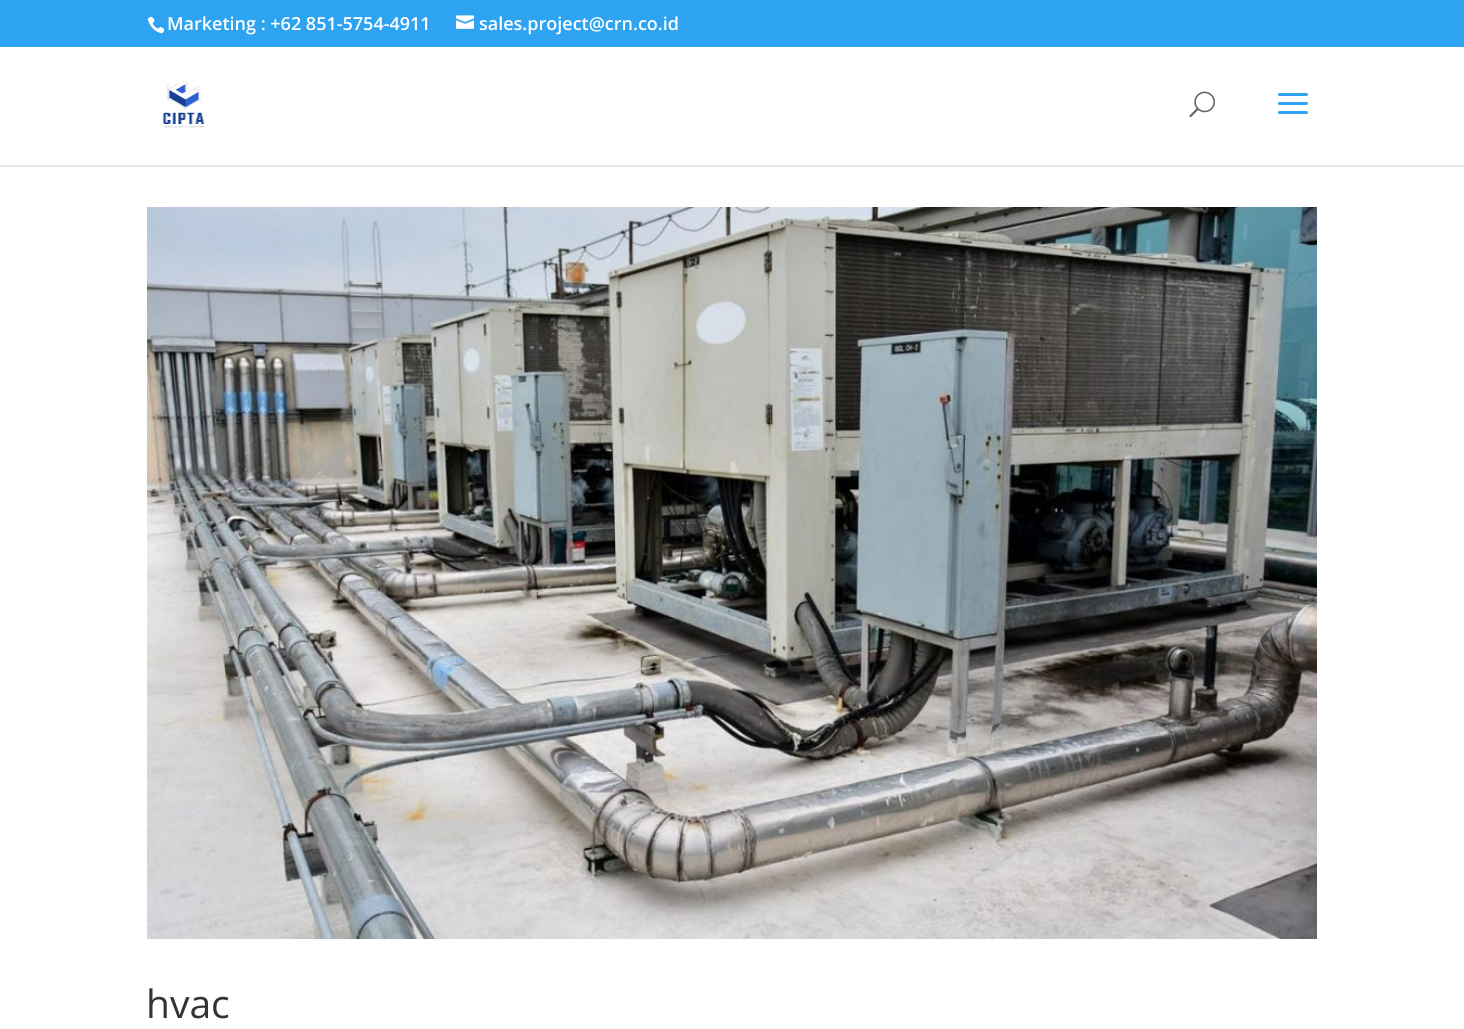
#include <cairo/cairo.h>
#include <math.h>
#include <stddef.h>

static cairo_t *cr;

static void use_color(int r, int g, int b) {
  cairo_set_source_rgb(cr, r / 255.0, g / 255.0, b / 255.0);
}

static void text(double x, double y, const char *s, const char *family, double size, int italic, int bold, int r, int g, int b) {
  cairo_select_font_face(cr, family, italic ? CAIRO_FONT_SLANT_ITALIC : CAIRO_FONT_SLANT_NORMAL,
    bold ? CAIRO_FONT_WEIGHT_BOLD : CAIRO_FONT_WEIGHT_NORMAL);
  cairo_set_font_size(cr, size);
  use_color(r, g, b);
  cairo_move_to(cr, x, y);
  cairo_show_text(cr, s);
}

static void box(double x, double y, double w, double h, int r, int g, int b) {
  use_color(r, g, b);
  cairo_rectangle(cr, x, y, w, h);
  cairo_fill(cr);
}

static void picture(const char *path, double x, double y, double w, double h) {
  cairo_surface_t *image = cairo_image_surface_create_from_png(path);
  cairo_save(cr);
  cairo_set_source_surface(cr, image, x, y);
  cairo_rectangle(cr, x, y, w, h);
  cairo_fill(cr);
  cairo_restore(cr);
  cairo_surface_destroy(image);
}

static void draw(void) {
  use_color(255, 255, 255);
  cairo_paint(cr);
  box(0, 0, 1464, 47, 46, 163, 242);
  picture("img_01.png", 147, 16, 18, 18);
  picture("img_02.png", 456, 15, 18, 14);
  box(0, 165, 1464, 2, 230, 230, 230);
  picture("img_03.png", 162, 79, 43, 49);
  picture("img_04.png", 1189, 91, 26, 27);
  picture("img_05.png", 1278, 93, 30, 21);
  picture("img_06.png", 147, 207, 1170, 732);
  text(167, 30, "Marketing : +62 851-5754-4911", "Open Sans SemiBold", 18, 0, 0, 255, 255, 255);
  text(479, 30, "sales.project@crn.co.id", "Open Sans SemiBold", 18, 0, 0, 255, 255, 255);
  text(146, 1018, "hvac", "Open Sans", 39, 0, 0, 51, 51, 51);
}

int main(void) {
  cairo_surface_t *surface = cairo_image_surface_create(CAIRO_FORMAT_RGB24, 1464, 1029);
  cr = cairo_create(surface);
  cairo_font_options_t *options = cairo_font_options_create();
  cairo_font_options_set_hint_metrics(options, CAIRO_HINT_METRICS_OFF);
  cairo_font_options_set_hint_style(options, CAIRO_HINT_STYLE_NONE);
  cairo_set_font_options(cr, options);
  cairo_set_miter_limit(cr, 4);
  draw();
  cairo_surface_write_to_png(surface, "out.png");
  cairo_font_options_destroy(options);
  cairo_destroy(cr);
  cairo_surface_destroy(surface);
  return 0;
}
